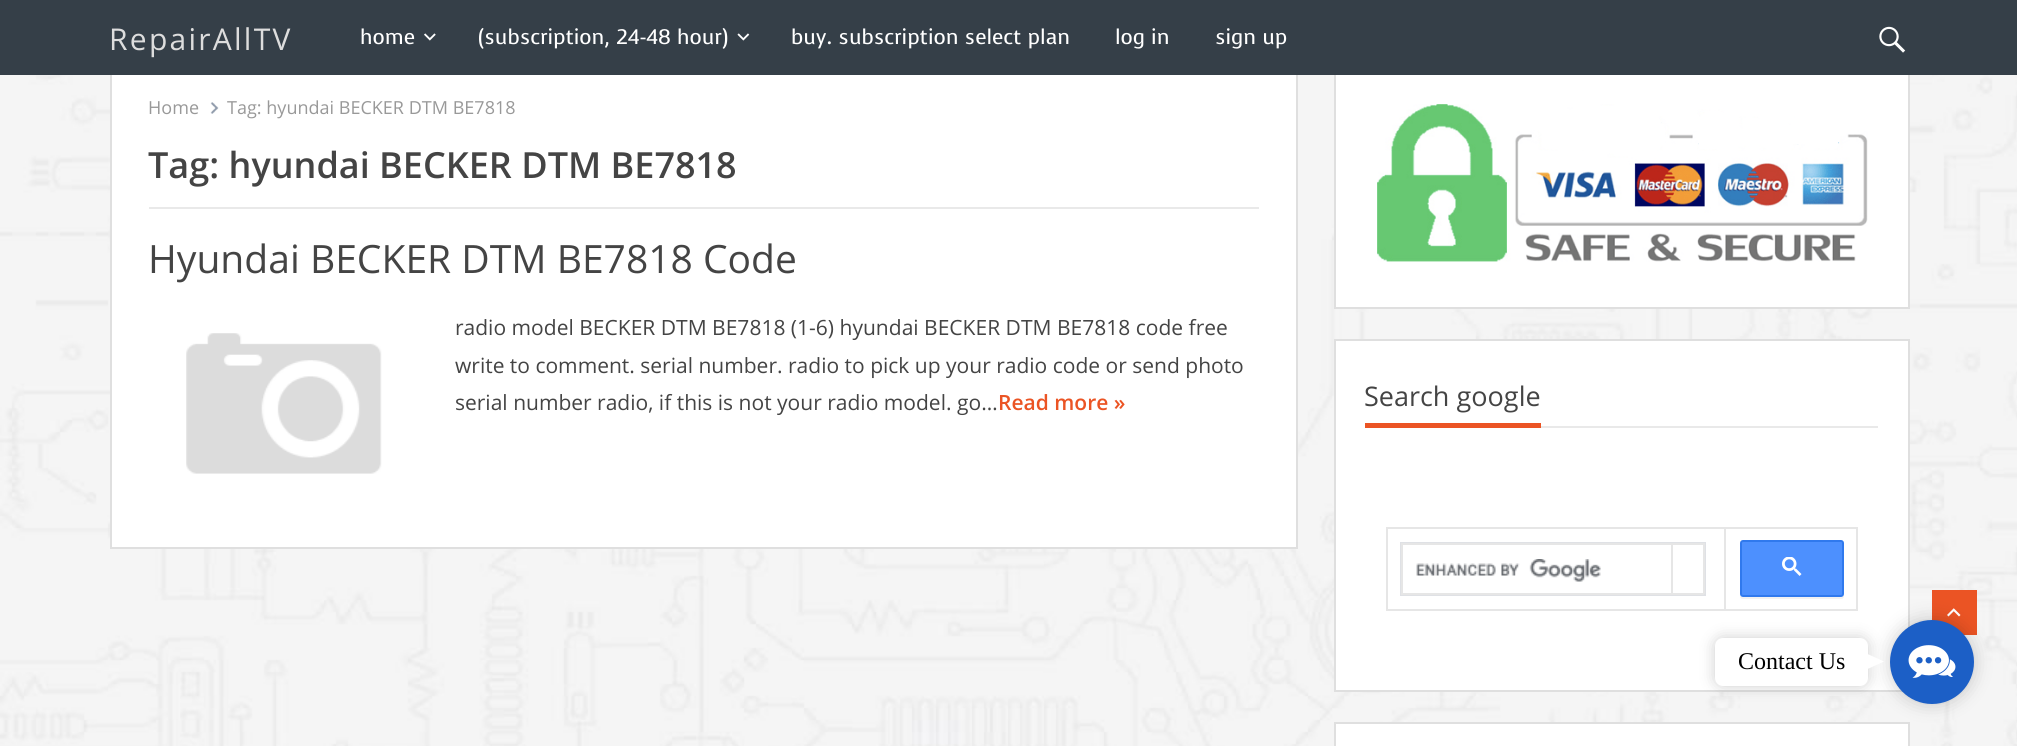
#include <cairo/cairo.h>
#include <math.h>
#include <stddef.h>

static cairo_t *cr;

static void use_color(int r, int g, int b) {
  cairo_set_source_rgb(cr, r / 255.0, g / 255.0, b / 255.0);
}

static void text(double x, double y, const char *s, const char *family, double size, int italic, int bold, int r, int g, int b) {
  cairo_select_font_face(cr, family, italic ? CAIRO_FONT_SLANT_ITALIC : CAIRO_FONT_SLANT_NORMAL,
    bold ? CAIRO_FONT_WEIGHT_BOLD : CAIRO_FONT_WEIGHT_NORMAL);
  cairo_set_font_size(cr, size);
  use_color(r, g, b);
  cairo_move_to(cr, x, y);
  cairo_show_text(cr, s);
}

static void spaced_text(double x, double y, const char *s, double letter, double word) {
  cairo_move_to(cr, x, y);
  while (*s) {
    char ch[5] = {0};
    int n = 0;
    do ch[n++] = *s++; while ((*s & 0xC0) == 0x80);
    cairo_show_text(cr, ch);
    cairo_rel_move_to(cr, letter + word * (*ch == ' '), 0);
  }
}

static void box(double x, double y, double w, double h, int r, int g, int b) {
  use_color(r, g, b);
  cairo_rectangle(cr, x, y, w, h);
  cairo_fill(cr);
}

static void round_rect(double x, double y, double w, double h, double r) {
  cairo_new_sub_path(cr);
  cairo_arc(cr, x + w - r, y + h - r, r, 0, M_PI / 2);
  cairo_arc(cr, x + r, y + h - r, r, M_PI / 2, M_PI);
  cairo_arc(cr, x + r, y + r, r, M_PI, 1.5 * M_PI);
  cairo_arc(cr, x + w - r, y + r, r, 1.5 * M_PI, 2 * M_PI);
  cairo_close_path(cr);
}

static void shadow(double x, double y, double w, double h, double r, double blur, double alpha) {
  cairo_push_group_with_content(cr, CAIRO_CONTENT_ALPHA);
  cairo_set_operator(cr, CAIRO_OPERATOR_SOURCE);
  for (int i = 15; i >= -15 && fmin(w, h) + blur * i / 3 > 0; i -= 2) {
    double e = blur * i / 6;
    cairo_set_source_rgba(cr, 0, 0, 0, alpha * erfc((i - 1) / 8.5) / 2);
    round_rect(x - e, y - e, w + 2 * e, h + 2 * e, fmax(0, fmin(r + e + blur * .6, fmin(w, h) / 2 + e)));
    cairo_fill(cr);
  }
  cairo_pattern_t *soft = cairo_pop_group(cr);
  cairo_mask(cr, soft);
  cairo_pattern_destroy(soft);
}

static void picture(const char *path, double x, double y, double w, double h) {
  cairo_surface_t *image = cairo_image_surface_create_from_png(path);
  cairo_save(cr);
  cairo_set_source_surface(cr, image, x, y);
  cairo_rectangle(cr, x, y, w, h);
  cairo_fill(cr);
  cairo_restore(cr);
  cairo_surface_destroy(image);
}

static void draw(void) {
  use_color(255, 255, 255);
  cairo_paint(cr);
  picture("img_01.png", 0, 0, 2017, 746);
  use_color(255, 255, 255);
  cairo_rectangle(cr, 111, 46, 1186, 502);
  cairo_fill_preserve(cr);
  use_color(223, 223, 223);
  cairo_stroke(cr);
  use_color(255, 255, 255);
  cairo_rectangle(cr, 1335, -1, 574, 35);
  cairo_fill_preserve(cr);
  use_color(223, 223, 223);
  cairo_stroke(cr);
  use_color(255, 255, 255);
  cairo_rectangle(cr, 1335, 66, 574, 242);
  cairo_fill_preserve(cr);
  use_color(223, 223, 223);
  cairo_stroke(cr);
  cairo_set_source_rgba(cr, 0.204, 0.243, 0.278, 0.99);
  cairo_rectangle(cr, 0, 0, 2017, 75);
  cairo_fill(cr);
  picture("img_02.png", 424, 33, 12, 8);
  picture("img_03.png", 737, 33, 13, 8);
  picture("img_04.png", 1879, 26, 27, 27);
  box(149, 207, 1110, 2, 233, 233, 233);
  picture("img_05.png", 210, 102, 9, 12);
  picture("img_06.png", 186, 333, 196, 141);
  picture("img_07.png", 1377, 104, 491, 158);
  use_color(255, 255, 255);
  cairo_rectangle(cr, 1335, 340, 574, 351);
  cairo_fill_preserve(cr);
  use_color(223, 223, 223);
  cairo_stroke(cr);
  box(1541, 426, 337, 2, 233, 233, 233);
  box(1365, 423, 176, 5, 235, 84, 36);
  box(1724, 527, 133, 2, 230, 230, 230);
  box(1856, 527, 2, 84, 230, 230, 230);
  box(1724, 609, 133, 2, 230, 230, 230);
  box(1724, 527, 2, 84, 230, 230, 230);
  box(1386, 527, 339, 2, 230, 230, 230);
  box(1386, 609, 339, 2, 230, 230, 230);
  box(1386, 527, 2, 84, 230, 230, 230);
  cairo_rectangle(cr, 1401, 543, 304, 52);
  use_color(223, 225, 229);
  cairo_stroke(cr);
  box(1671, 543, 33, 2, 230, 230, 230);
  box(1703, 543, 2, 51, 230, 230, 230);
  box(1671, 593, 33, 2, 230, 230, 230);
  box(1671, 543, 2, 51, 230, 230, 230);
  box(1401, 543, 272, 2, 230, 230, 230);
  box(1401, 593, 272, 2, 230, 230, 230);
  box(1401, 543, 2, 51, 230, 230, 230);
  picture("img_08.png", 1416, 559, 185, 23);
  use_color(242, 242, 242);
  cairo_new_path(cr);
  cairo_move_to(cr, 1740, 594);
  cairo_line_to(cr, 1740, 596);
  cairo_curve_to(cr, 1740, 598, 1741, 599, 1743, 599);
  cairo_line_to(cr, 1841, 599);
  cairo_curve_to(cr, 1843, 599, 1844, 598, 1844, 596);
  cairo_line_to(cr, 1844, 545);
  cairo_line_to(cr, 1844, 543);
  cairo_line_to(cr, 1844, 594);
  cairo_curve_to(cr, 1844, 596, 1842, 597, 1840, 597);
  cairo_line_to(cr, 1743, 597);
  cairo_curve_to(cr, 1741, 597, 1740, 596, 1740, 594);
  cairo_close_path(cr);
  cairo_fill(cr);
  use_color(77, 144, 254);
  round_rect(1741, 541, 102, 55, 2);
  cairo_fill_preserve(cr);
  use_color(48, 121, 237);
  cairo_stroke(cr);
  picture("img_09.png", 1782, 557, 20, 19);
  use_color(255, 255, 255);
  cairo_rectangle(cr, 1335, 723, 574, 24);
  cairo_fill_preserve(cr);
  use_color(223, 223, 223);
  cairo_stroke(cr);
  box(1932, 590, 45, 45, 235, 84, 36);
  picture("img_10.png", 1947, 608, 14, 9);
  use_color(0, 0, 0);
  shadow(1890, 620, 84, 84, 42, 9, 0.2);
  use_color(28, 95, 198);
  cairo_arc(cr, 1932, 662, 42, 0, 2 * M_PI);
  cairo_fill(cr);
  use_color(0, 0, 0);
  shadow(1715, 638, 153, 48, 8, 7.5, 0.2);
  use_color(255, 255, 255);
  round_rect(1715, 638, 153, 48, 8);
  cairo_fill(cr);
  cairo_new_path(cr);
  cairo_move_to(cr, 1867.5, 669);
  cairo_line_to(cr, 1867.5, 654);
  cairo_line_to(cr, 1884, 661.5);
  cairo_close_path(cr);
  cairo_fill(cr);
  picture("img_11.png", 1908, 645, 48, 33);
  cairo_select_font_face(cr, "Open Sans", CAIRO_FONT_SLANT_NORMAL, CAIRO_FONT_WEIGHT_NORMAL);
  cairo_set_font_size(cr, 30);
  use_color(221, 221, 221);
  spaced_text(109, 50, "RepairAllTV", 2.25, 0);
  text(360, 44, "home", "Voces", 21, 0, 0, 255, 255, 255);
  text(478, 44, "(subscription, 24-48 hour)", "Voces", 21, 0, 0, 255, 255, 255);
  text(791, 44, "buy. subscription select plan", "Voces", 21, 0, 0, 255, 255, 255);
  text(1115, 44, "log in", "Voces", 21, 0, 0, 255, 255, 255);
  text(1215, 44, "sign up", "Voces", 21, 0, 0, 255, 255, 255);
  text(148, 114, "Home", "Open Sans", 18, 0, 0, 153, 153, 153);
  text(227, 114, "Tag: hyundai BECKER DTM BE7818", "Open Sans", 18, 0, 0, 153, 153, 153);
  text(148, 178, "Tag: hyundai BECKER DTM BE7818", "Open Sans SemiBold", 36, 0, 0, 68, 68, 68);
  text(148, 273, "Hyundai BECKER DTM BE7818 Code", "Open Sans", 39, 0, 0, 68, 68, 68);
  text(455, 335, "radio model BECKER DTM BE7818 (1-6) hyundai BECKER DTM BE7818 code free", "Open Sans", 21, 0, 0, 68, 68, 68);
  text(455, 373, "write to comment. serial number. radio to pick up your radio code or send photo", "Open Sans", 21, 0, 0, 68, 68, 68);
  text(455, 410, "serial number radio, if this is not your radio model. go…", "Open Sans", 21, 0, 0, 68, 68, 68);
  text(998, 410, "Read more »", "Open Sans SemiBold", 21, 0, 0, 235, 84, 36);
  text(1364, 406, "Search google", "Open Sans", 27, 0, 0, 68, 68, 68);
  text(1738, 669, "Contact Us", "Liberation Serif", 24, 0, 0, 0, 0, 0);
}

int main(void) {
  cairo_surface_t *surface = cairo_image_surface_create(CAIRO_FORMAT_RGB24, 2017, 746);
  cr = cairo_create(surface);
  cairo_font_options_t *options = cairo_font_options_create();
  cairo_font_options_set_hint_metrics(options, CAIRO_HINT_METRICS_OFF);
  cairo_font_options_set_hint_style(options, CAIRO_HINT_STYLE_NONE);
  cairo_set_font_options(cr, options);
  cairo_set_miter_limit(cr, 4);
  draw();
  cairo_surface_write_to_png(surface, "out.png");
  cairo_font_options_destroy(options);
  cairo_destroy(cr);
  cairo_surface_destroy(surface);
  return 0;
}
